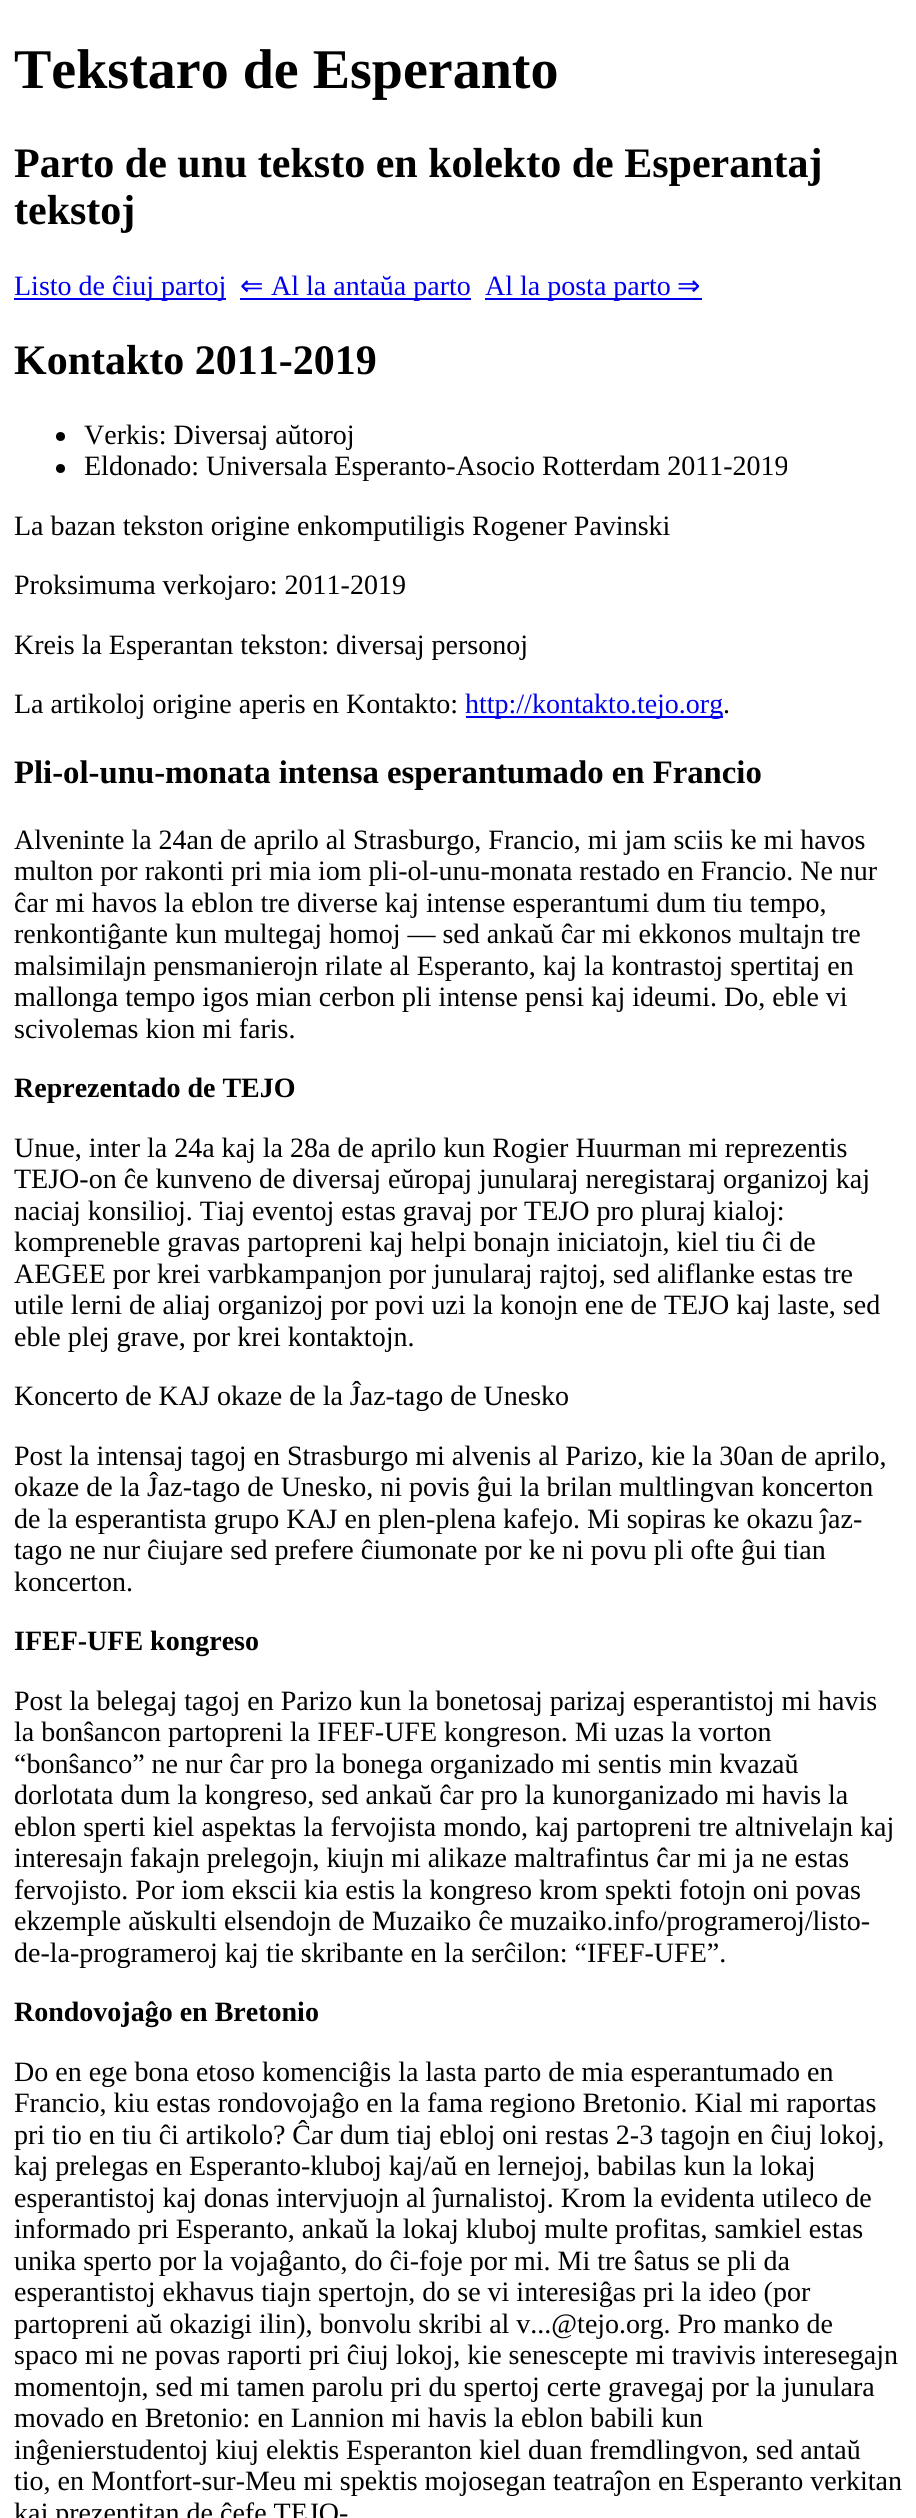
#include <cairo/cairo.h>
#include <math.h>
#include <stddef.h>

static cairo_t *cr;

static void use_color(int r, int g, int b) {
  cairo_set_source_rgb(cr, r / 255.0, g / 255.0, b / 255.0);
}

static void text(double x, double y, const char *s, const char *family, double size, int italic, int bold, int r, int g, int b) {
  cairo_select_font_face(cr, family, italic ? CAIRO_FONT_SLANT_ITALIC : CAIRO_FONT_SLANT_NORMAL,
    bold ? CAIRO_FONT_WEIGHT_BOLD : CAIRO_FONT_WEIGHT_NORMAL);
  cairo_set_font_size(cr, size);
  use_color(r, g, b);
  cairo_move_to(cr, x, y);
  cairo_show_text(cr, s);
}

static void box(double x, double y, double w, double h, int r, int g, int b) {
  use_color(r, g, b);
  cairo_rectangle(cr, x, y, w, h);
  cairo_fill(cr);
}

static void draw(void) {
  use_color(255, 255, 255);
  cairo_paint(cr);
  box(14, 298, 212, 2, 0, 0, 238);
  box(240, 298, 231, 2, 0, 0, 238);
  box(485, 298, 217, 2, 0, 0, 238);
  use_color(0, 0, 0);
  cairo_arc(cr, 60.5, 436.5, 4.5, 0, 2 * M_PI);
  cairo_fill(cr);
  cairo_arc(cr, 60.5, 468.5, 4.5, 0, 2 * M_PI);
  cairo_fill(cr);
  box(466, 716, 257, 2, 0, 0, 238);
  text(14, 88, "Tekstaro de Esperanto", "Liberation Serif", 56, 0, 1, 0, 0, 0);
  text(14, 177, "Parto de unu teksto en kolekto de Esperantaj", "Liberation Serif", 42, 0, 1, 0, 0, 0);
  text(14, 224, "tekstoj", "Liberation Serif", 42, 0, 1, 0, 0, 0);
  text(14, 295, "Listo de ĉiuj partoj", "Liberation Serif", 28, 0, 0, 0, 0, 238);
  text(240, 295, "⇐", "DejaVu Sans", 28, 0, 0, 0, 0, 238);
  text(271, 295, "Al la antaŭa parto", "Liberation Serif", 28, 0, 0, 0, 0, 238);
  text(485, 295, "Al la posta parto", "Liberation Serif", 28, 0, 0, 0, 0, 238);
  text(677, 295, "⇒", "DejaVu Sans", 28, 0, 0, 0, 0, 238);
  text(14, 374, "Kontakto 2011-2019", "Liberation Serif", 42, 0, 1, 0, 0, 0);
  text(84, 444, "Verkis: Diversaj aŭtoroj", "Liberation Serif", 28, 0, 0, 0, 0, 0);
  text(84, 475, "Eldonado: Universala Esperanto-Asocio Rotterdam 2011-2019", "Liberation Serif", 28, 0, 0, 0, 0, 0);
  text(14, 535, "La bazan tekston origine enkomputiligis Rogener Pavinski", "Liberation Serif", 28, 0, 0, 0, 0, 0);
  text(14, 594, "Proksimuma verkojaro: 2011-2019", "Liberation Serif", 28, 0, 0, 0, 0, 0);
  text(14, 654, "Kreis la Esperantan tekston: diversaj personoj", "Liberation Serif", 28, 0, 0, 0, 0, 0);
  text(14, 713, "La artikoloj origine aperis en Kontakto:", "Liberation Serif", 28, 0, 0, 0, 0, 0);
  text(465, 713, "http://kontakto.tejo.org", "Liberation Serif", 28, 0, 0, 0, 0, 238);
  text(723, 713, ".", "Liberation Serif", 28, 0, 0, 0, 0, 0);
  text(14, 783, "Pli-ol-unu-monata intensa esperantumado en Francio", "Liberation Serif", 32.75, 0, 1, 0, 0, 0);
  text(14, 849, "Alveninte la 24an de aprilo al Strasburgo, Francio, mi jam sciis ke mi havos", "Liberation Serif", 28, 0, 0, 0, 0, 0);
  text(14, 880, "multon por rakonti pri mia iom pli-ol-unu-monata restado en Francio. Ne nur", "Liberation Serif", 28, 0, 0, 0, 0, 0);
  text(14, 912, "ĉar mi havos la eblon tre diverse kaj intense esperantumi dum tiu tempo,", "Liberation Serif", 28, 0, 0, 0, 0, 0);
  text(14, 943, "renkontiĝante kun multegaj homoj — sed ankaŭ ĉar mi ekkonos multajn tre", "Liberation Serif", 28, 0, 0, 0, 0, 0);
  text(14, 975, "malsimilajn pensmanierojn rilate al Esperanto, kaj la kontrastoj spertitaj en", "Liberation Serif", 28, 0, 0, 0, 0, 0);
  text(14, 1006, "mallonga tempo igos mian cerbon pli intense pensi kaj ideumi. Do, eble vi", "Liberation Serif", 28, 0, 0, 0, 0, 0);
  text(14, 1038, "scivolemas kion mi faris.", "Liberation Serif", 28, 0, 0, 0, 0, 0);
  text(14, 1097, "Reprezentado de TEJO", "Liberation Serif", 28, 0, 1, 0, 0, 0);
  text(14, 1157, "Unue, inter la 24a kaj la 28a de aprilo kun Rogier Huurman mi reprezentis", "Liberation Serif", 28, 0, 0, 0, 0, 0);
  text(14, 1188, "TEJO-on ĉe kunveno de diversaj eŭropaj junularaj neregistaraj organizoj kaj", "Liberation Serif", 28, 0, 0, 0, 0, 0);
  text(14, 1220, "naciaj konsilioj. Tiaj eventoj estas gravaj por TEJO pro pluraj kialoj:", "Liberation Serif", 28, 0, 0, 0, 0, 0);
  text(14, 1251, "kompreneble gravas partopreni kaj helpi bonajn iniciatojn, kiel tiu ĉi de", "Liberation Serif", 28, 0, 0, 0, 0, 0);
  text(14, 1283, "AEGEE por krei varbkampanjon por junularaj rajtoj, sed aliflanke estas tre", "Liberation Serif", 28, 0, 0, 0, 0, 0);
  text(14, 1314, "utile lerni de aliaj organizoj por povi uzi la konojn ene de TEJO kaj laste, sed", "Liberation Serif", 28, 0, 0, 0, 0, 0);
  text(14, 1346, "eble plej grave, por krei kontaktojn.", "Liberation Serif", 28, 0, 0, 0, 0, 0);
  text(14, 1405, "Koncerto de KAJ okaze de la Ĵaz-tago de Unesko", "Liberation Serif", 28, 0, 0, 0, 0, 0);
  text(14, 1465, "Post la intensaj tagoj en Strasburgo mi alvenis al Parizo, kie la 30an de aprilo,", "Liberation Serif", 28, 0, 0, 0, 0, 0);
  text(14, 1496, "okaze de la Ĵaz-tago de Unesko, ni povis ĝui la brilan multlingvan koncerton", "Liberation Serif", 28, 0, 0, 0, 0, 0);
  text(14, 1528, "de la esperantista grupo KAJ en plen-plena kafejo. Mi sopiras ke okazu ĵaz-", "Liberation Serif", 28, 0, 0, 0, 0, 0);
  text(14, 1559, "tago ne nur ĉiujare sed prefere ĉiumonate por ke ni povu pli ofte ĝui tian", "Liberation Serif", 28, 0, 0, 0, 0, 0);
  text(14, 1591, "koncerton.", "Liberation Serif", 28, 0, 0, 0, 0, 0);
  text(14, 1650, "IFEF-UFE kongreso", "Liberation Serif", 28, 0, 1, 0, 0, 0);
  text(14, 1710, "Post la belegaj tagoj en Parizo kun la bonetosaj parizaj esperantistoj mi havis", "Liberation Serif", 28, 0, 0, 0, 0, 0);
  text(14, 1741, "la bonŝancon partopreni la IFEF-UFE kongreson. Mi uzas la vorton", "Liberation Serif", 28, 0, 0, 0, 0, 0);
  text(14, 1773, "“bonŝanco” ne nur ĉar pro la bonega organizado mi sentis min kvazaŭ", "Liberation Serif", 28, 0, 0, 0, 0, 0);
  text(14, 1804, "dorlotata dum la kongreso, sed ankaŭ ĉar pro la kunorganizado mi havis la", "Liberation Serif", 28, 0, 0, 0, 0, 0);
  text(14, 1836, "eblon sperti kiel aspektas la fervojista mondo, kaj partopreni tre altnivelajn kaj", "Liberation Serif", 28, 0, 0, 0, 0, 0);
  text(14, 1867, "interesajn fakajn prelegojn, kiujn mi alikaze maltrafintus ĉar mi ja ne estas", "Liberation Serif", 28, 0, 0, 0, 0, 0);
  text(14, 1899, "fervojisto. Por iom ekscii kia estis la kongreso krom spekti fotojn oni povas", "Liberation Serif", 28, 0, 0, 0, 0, 0);
  text(14, 1930, "ekzemple aŭskulti elsendojn de Muzaiko ĉe muzaiko.info/programeroj/listo-", "Liberation Serif", 28, 0, 0, 0, 0, 0);
  text(14, 1962, "de-la-programeroj kaj tie skribante en la serĉilon: “IFEF-UFE”.", "Liberation Serif", 28, 0, 0, 0, 0, 0);
  text(14, 2021, "Rondovojaĝo en Bretonio", "Liberation Serif", 28, 0, 1, 0, 0, 0);
  text(14, 2081, "Do en ege bona etoso komenciĝis la lasta parto de mia esperantumado en", "Liberation Serif", 28, 0, 0, 0, 0, 0);
  text(14, 2112, "Francio, kiu estas rondovojaĝo en la fama regiono Bretonio. Kial mi raportas", "Liberation Serif", 28, 0, 0, 0, 0, 0);
  text(14, 2144, "pri tio en tiu ĉi artikolo? Ĉar dum tiaj ebloj oni restas 2-3 tagojn en ĉiuj lokoj,", "Liberation Serif", 28, 0, 0, 0, 0, 0);
  text(14, 2175, "kaj prelegas en Esperanto-kluboj kaj/aŭ en lernejoj, babilas kun la lokaj", "Liberation Serif", 28, 0, 0, 0, 0, 0);
  text(14, 2207, "esperantistoj kaj donas intervjuojn al ĵurnalistoj. Krom la evidenta utileco de", "Liberation Serif", 28, 0, 0, 0, 0, 0);
  text(14, 2238, "informado pri Esperanto, ankaŭ la lokaj kluboj multe profitas, samkiel estas", "Liberation Serif", 28, 0, 0, 0, 0, 0);
  text(14, 2270, "unika sperto por la vojaĝanto, do ĉi-foje por mi. Mi tre ŝatus se pli da", "Liberation Serif", 28, 0, 0, 0, 0, 0);
  text(14, 2301, "esperantistoj ekhavus tiajn spertojn, do se vi interesiĝas pri la ideo (por", "Liberation Serif", 28, 0, 0, 0, 0, 0);
  text(14, 2333, "partopreni aŭ okazigi ilin), bonvolu skribi al v...@tejo.org. Pro manko de", "Liberation Serif", 28, 0, 0, 0, 0, 0);
  text(14, 2364, "spaco mi ne povas raporti pri ĉiuj lokoj, kie senescepte mi travivis interesegajn", "Liberation Serif", 28, 0, 0, 0, 0, 0);
  text(14, 2396, "momentojn, sed mi tamen parolu pri du spertoj certe gravegaj por la junulara", "Liberation Serif", 28, 0, 0, 0, 0, 0);
  text(14, 2427, "movado en Bretonio: en Lannion mi havis la eblon babili kun", "Liberation Serif", 28, 0, 0, 0, 0, 0);
  text(14, 2459, "inĝenierstudentoj kiuj elektis Esperanton kiel duan fremdlingvon, sed antaŭ", "Liberation Serif", 28, 0, 0, 0, 0, 0);
  text(14, 2490, "tio, en Montfort-sur-Meu mi spektis mojosegan teatraĵon en Esperanto verkitan", "Liberation Serif", 28, 0, 0, 0, 0, 0);
  text(14, 2522, "kaj prezentitan de ĉefe TEJO-", "Liberation Serif", 28, 0, 0, 0, 0, 0);
}

int main(void) {
  cairo_surface_t *surface = cairo_image_surface_create(CAIRO_FORMAT_RGB24, 916, 2518);
  cr = cairo_create(surface);
  cairo_font_options_t *options = cairo_font_options_create();
  cairo_font_options_set_hint_metrics(options, CAIRO_HINT_METRICS_OFF);
  cairo_font_options_set_hint_style(options, CAIRO_HINT_STYLE_NONE);
  cairo_set_font_options(cr, options);
  cairo_set_miter_limit(cr, 4);
  draw();
  cairo_surface_write_to_png(surface, "out.png");
  cairo_font_options_destroy(options);
  cairo_destroy(cr);
  cairo_surface_destroy(surface);
  return 0;
}
